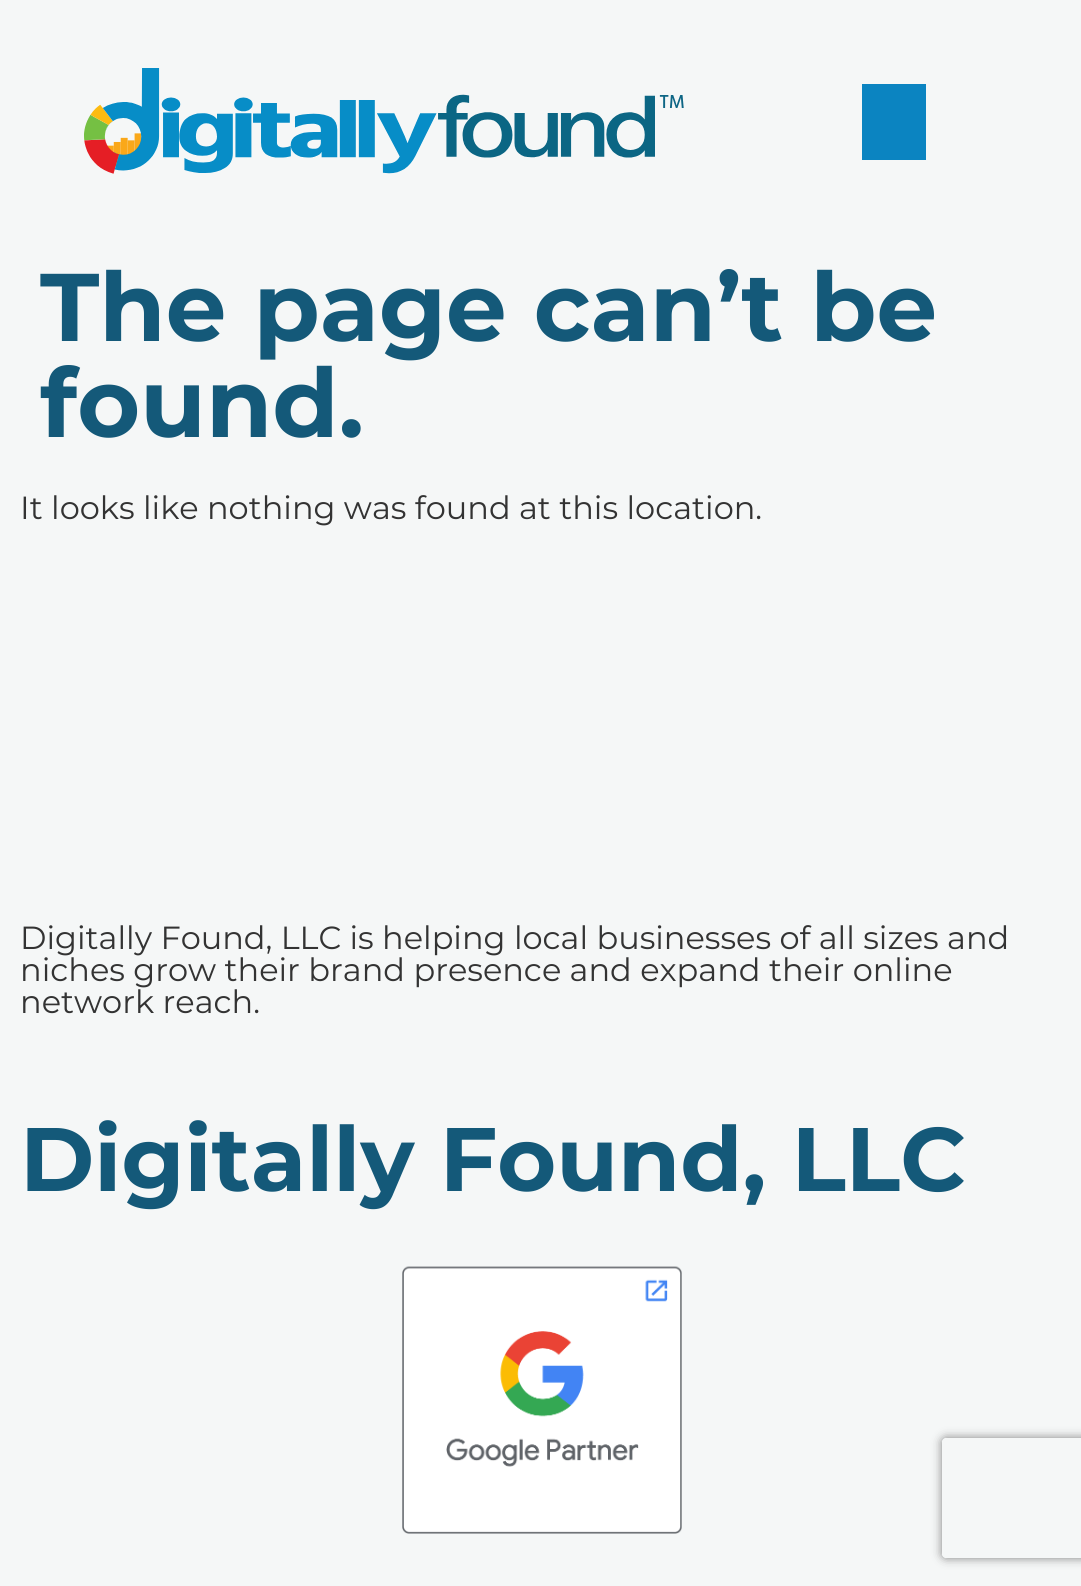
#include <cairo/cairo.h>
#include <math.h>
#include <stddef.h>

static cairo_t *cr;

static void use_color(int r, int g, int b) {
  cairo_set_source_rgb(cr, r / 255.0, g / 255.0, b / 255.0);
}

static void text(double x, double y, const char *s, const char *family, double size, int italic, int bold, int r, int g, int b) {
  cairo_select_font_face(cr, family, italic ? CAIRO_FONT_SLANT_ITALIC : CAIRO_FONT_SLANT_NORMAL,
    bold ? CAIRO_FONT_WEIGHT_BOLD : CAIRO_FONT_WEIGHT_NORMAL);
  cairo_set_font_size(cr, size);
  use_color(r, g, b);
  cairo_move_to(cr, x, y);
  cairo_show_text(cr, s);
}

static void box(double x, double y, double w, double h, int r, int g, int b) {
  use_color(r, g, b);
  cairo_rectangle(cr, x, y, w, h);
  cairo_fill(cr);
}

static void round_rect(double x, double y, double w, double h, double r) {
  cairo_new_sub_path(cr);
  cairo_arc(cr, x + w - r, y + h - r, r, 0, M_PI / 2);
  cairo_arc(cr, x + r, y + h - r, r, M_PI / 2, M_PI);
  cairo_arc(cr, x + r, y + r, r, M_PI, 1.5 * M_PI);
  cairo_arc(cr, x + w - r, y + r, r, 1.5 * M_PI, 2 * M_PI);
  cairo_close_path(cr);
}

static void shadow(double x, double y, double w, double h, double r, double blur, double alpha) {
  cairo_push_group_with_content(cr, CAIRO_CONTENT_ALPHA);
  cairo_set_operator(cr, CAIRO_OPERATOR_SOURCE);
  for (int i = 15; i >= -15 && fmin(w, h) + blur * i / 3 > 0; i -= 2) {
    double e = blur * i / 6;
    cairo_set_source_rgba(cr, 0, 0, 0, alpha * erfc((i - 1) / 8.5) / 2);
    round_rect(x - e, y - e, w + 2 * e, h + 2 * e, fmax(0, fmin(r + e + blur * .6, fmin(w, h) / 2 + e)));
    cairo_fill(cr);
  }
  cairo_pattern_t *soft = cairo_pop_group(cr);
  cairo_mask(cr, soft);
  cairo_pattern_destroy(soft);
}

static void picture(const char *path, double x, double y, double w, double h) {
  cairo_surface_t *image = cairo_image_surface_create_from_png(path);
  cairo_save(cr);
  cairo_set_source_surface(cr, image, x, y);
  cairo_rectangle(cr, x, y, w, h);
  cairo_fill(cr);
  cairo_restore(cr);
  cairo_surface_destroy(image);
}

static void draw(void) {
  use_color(245, 247, 247);
  cairo_paint(cr);
  picture("img_01.png", 84, 68, 600, 106);
  box(862, 84, 64, 76, 11, 132, 193);
  picture("img_02.png", 402, 1266, 280, 268);
  cairo_save(cr);
  cairo_set_fill_rule(cr, CAIRO_FILL_RULE_EVEN_ODD);
  cairo_new_path(cr);
  cairo_move_to(cr, 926, 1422);
  cairo_line_to(cr, 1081, 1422);
  cairo_line_to(cr, 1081, 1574);
  cairo_line_to(cr, 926, 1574);
  cairo_close_path(cr);
  cairo_move_to(cr, 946, 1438);
  cairo_line_to(cr, 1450, 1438);
  cairo_curve_to(cr, 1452, 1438, 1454, 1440, 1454, 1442);
  cairo_line_to(cr, 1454, 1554);
  cairo_curve_to(cr, 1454, 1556, 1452, 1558, 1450, 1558);
  cairo_line_to(cr, 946, 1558);
  cairo_curve_to(cr, 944, 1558, 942, 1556, 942, 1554);
  cairo_line_to(cr, 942, 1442);
  cairo_curve_to(cr, 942, 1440, 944, 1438, 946, 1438);
  cairo_close_path(cr);
  cairo_clip(cr);
  use_color(128, 128, 128);
  shadow(942, 1438, 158, 120, 4, 5, 1);
  cairo_restore(cr);
  text(40, 341, "The page can’t be", "Montserrat", 96, 0, 1, 20, 89, 121);
  text(40, 437, "found.", "Montserrat", 96, 0, 1, 20, 89, 121);
  text(20, 519, "It looks like nothing was found at this location.", "Montserrat", 32, 0, 0, 51, 51, 51);
  text(20, 949, "Digitally Found, LLC is helping local businesses of all sizes and", "Montserrat", 32, 0, 0, 51, 51, 51);
  text(20, 981, "niches grow their brand presence and expand their online", "Montserrat", 32, 0, 0, 51, 51, 51);
  text(20, 1013, "network reach.", "Montserrat", 32, 0, 0, 51, 51, 51);
  text(20, 1191, "Digitally Found, LLC", "Montserrat", 90, 0, 1, 20, 89, 121);
}

int main(void) {
  cairo_surface_t *surface = cairo_image_surface_create(CAIRO_FORMAT_RGB24, 1081, 1586);
  cr = cairo_create(surface);
  cairo_font_options_t *options = cairo_font_options_create();
  cairo_font_options_set_hint_metrics(options, CAIRO_HINT_METRICS_OFF);
  cairo_font_options_set_hint_style(options, CAIRO_HINT_STYLE_NONE);
  cairo_set_font_options(cr, options);
  cairo_set_miter_limit(cr, 4);
  draw();
  cairo_surface_write_to_png(surface, "out.png");
  cairo_font_options_destroy(options);
  cairo_destroy(cr);
  cairo_surface_destroy(surface);
  return 0;
}
